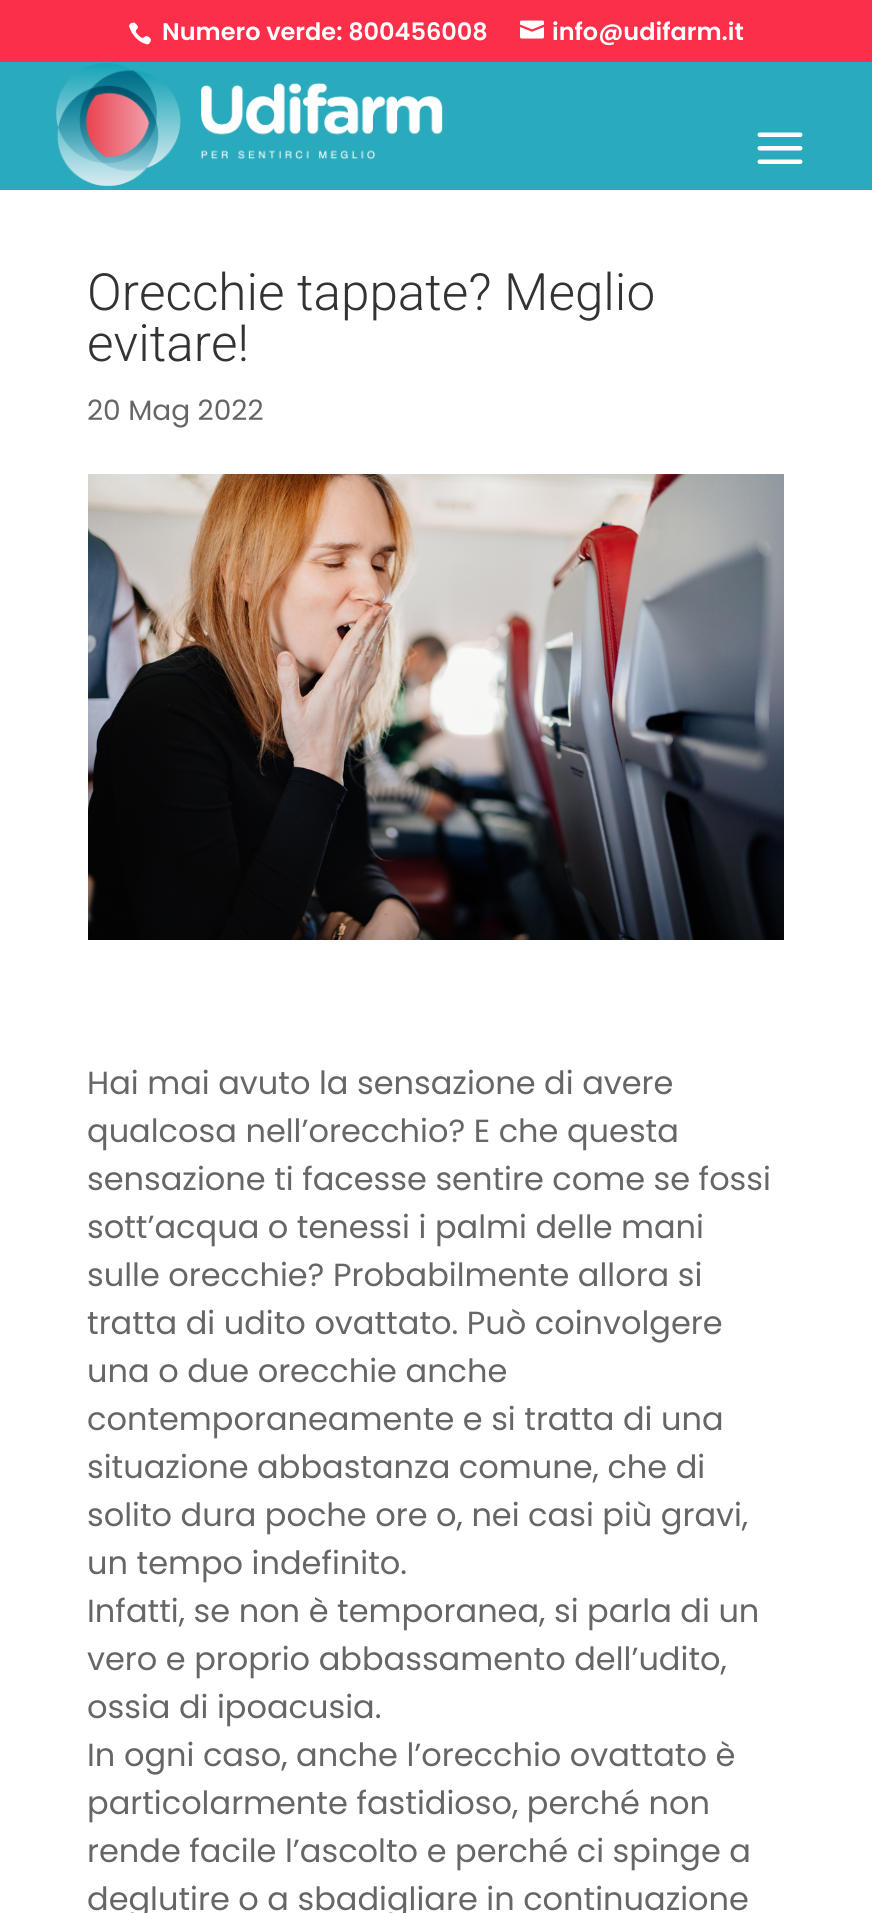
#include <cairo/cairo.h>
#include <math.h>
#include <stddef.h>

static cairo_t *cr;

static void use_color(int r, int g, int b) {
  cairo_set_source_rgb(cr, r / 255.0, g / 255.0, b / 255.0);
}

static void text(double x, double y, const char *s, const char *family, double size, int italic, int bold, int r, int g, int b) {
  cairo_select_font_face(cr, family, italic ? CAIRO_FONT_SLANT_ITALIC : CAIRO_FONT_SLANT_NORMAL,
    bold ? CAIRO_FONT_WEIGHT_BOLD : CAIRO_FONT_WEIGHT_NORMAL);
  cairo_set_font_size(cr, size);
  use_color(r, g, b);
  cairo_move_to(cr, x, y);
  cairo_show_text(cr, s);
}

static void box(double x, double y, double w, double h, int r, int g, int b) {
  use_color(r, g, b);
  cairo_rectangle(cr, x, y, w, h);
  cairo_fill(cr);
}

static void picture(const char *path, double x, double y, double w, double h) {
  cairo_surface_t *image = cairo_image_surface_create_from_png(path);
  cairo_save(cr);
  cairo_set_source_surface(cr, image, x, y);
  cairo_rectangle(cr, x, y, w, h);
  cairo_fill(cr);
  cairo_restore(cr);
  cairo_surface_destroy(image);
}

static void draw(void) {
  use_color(255, 255, 255);
  cairo_paint(cr);
  box(0, 0, 872, 62, 252, 47, 74);
  picture("img_01.png", 129, 22, 22, 23);
  picture("img_02.png", 520, 20, 24, 19);
  box(0, 62, 872, 128, 42, 171, 189);
  picture("img_03.png", 56, 63, 387, 123);
  picture("img_04.png", 757, 132, 46, 32);
  picture("img_05.png", 88, 474, 696, 466);
  text(162, 40, "Numero verde: 800456008", "Poppins SemiBold", 24, 0, 0, 255, 255, 255);
  text(552, 40, "info@udifarm.it", "Poppins SemiBold", 24, 0, 0, 255, 255, 255);
  text(87, 310, "Orecchie tappate? Meglio", "Roboto Light", 51.25, 0, 0, 51, 51, 51);
  text(87, 361, "evitare!", "Roboto Light", 51.25, 0, 0, 51, 51, 51);
  text(87, 420, "20 Mag 2022", "Poppins", 28, 0, 0, 102, 102, 102);
  text(87, 1094, "Hai mai avuto la sensazione di avere", "Poppins", 32, 0, 0, 102, 102, 102);
  text(87, 1142, "qualcosa nell’orecchio? E che questa", "Poppins", 32, 0, 0, 102, 102, 102);
  text(87, 1190, "sensazione ti facesse sentire come se fossi", "Poppins", 32, 0, 0, 102, 102, 102);
  text(87, 1238, "sott’acqua o tenessi i palmi delle mani", "Poppins", 32, 0, 0, 102, 102, 102);
  text(87, 1286, "sulle orecchie? Probabilmente allora si", "Poppins", 32, 0, 0, 102, 102, 102);
  text(87, 1334, "tratta di udito ovattato. Può coinvolgere", "Poppins", 32, 0, 0, 102, 102, 102);
  text(87, 1382, "una o due orecchie anche", "Poppins", 32, 0, 0, 102, 102, 102);
  text(87, 1430, "contemporaneamente e si tratta di una", "Poppins", 32, 0, 0, 102, 102, 102);
  text(87, 1478, "situazione abbastanza comune, che di", "Poppins", 32, 0, 0, 102, 102, 102);
  text(87, 1526, "solito dura poche ore o, nei casi più gravi,", "Poppins", 32, 0, 0, 102, 102, 102);
  text(87, 1574, "un tempo indefinito.", "Poppins", 32, 0, 0, 102, 102, 102);
  text(87, 1622, "Infatti, se non è temporanea, si parla di un", "Poppins", 32, 0, 0, 102, 102, 102);
  text(87, 1670, "vero e proprio abbassamento dell’udito,", "Poppins", 32, 0, 0, 102, 102, 102);
  text(87, 1718, "ossia di ipoacusia.", "Poppins", 32, 0, 0, 102, 102, 102);
  text(87, 1766, "In ogni caso, anche l’orecchio ovattato è", "Poppins", 32, 0, 0, 102, 102, 102);
  text(87, 1814, "particolarmente fastidioso, perché non", "Poppins", 32, 0, 0, 102, 102, 102);
  text(87, 1862, "rende facile l’ascolto e perché ci spinge a", "Poppins", 32, 0, 0, 102, 102, 102);
  text(87, 1910, "deglutire o a sbadigliare in continuazione", "Poppins", 32, 0, 0, 102, 102, 102);
}

int main(void) {
  cairo_surface_t *surface = cairo_image_surface_create(CAIRO_FORMAT_RGB24, 872, 1913);
  cr = cairo_create(surface);
  cairo_font_options_t *options = cairo_font_options_create();
  cairo_font_options_set_hint_metrics(options, CAIRO_HINT_METRICS_OFF);
  cairo_font_options_set_hint_style(options, CAIRO_HINT_STYLE_NONE);
  cairo_set_font_options(cr, options);
  cairo_set_miter_limit(cr, 4);
  draw();
  cairo_surface_write_to_png(surface, "out.png");
  cairo_font_options_destroy(options);
  cairo_destroy(cr);
  cairo_surface_destroy(surface);
  return 0;
}
